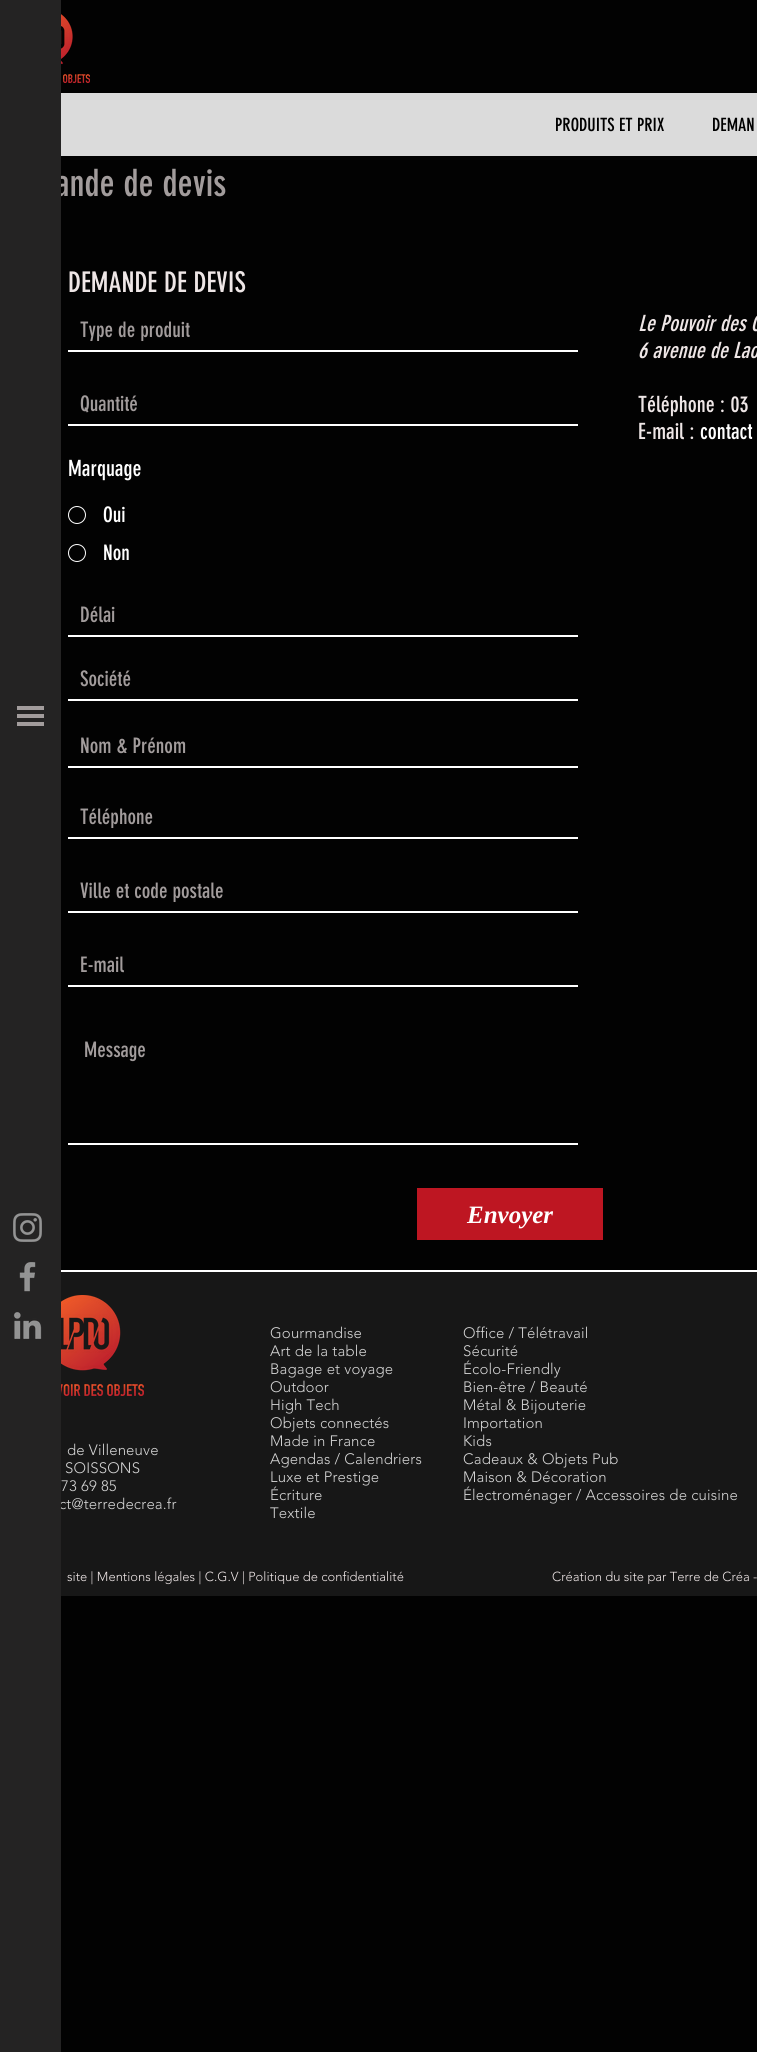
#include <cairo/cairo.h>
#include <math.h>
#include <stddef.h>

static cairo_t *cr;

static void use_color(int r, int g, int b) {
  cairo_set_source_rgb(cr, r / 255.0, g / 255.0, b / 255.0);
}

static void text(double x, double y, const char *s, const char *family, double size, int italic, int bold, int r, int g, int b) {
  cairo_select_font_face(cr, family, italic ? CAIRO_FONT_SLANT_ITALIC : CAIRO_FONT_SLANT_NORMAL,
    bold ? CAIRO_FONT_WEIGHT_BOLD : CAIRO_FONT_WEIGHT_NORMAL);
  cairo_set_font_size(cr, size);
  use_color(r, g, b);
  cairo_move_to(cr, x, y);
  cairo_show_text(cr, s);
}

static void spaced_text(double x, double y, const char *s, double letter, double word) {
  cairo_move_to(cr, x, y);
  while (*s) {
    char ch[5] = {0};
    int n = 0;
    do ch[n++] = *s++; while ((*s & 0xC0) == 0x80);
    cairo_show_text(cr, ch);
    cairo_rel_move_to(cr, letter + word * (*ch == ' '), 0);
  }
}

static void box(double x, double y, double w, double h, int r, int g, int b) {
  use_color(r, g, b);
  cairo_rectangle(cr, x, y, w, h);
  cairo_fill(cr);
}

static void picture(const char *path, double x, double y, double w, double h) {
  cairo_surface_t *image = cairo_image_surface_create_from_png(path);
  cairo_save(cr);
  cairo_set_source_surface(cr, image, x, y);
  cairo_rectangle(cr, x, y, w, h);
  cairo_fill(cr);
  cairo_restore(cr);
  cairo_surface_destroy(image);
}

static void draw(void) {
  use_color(2, 2, 2);
  cairo_paint(cr);
  picture("img_04.png", 61, 14, 29, 69);
  box(61, 93, 696, 63, 219, 219, 219);
  box(68, 350, 510, 2, 255, 255, 255);
  box(68, 424, 510, 2, 255, 255, 255);
  cairo_arc(cr, 77, 515, 8.5, 0, 2 * M_PI);
  cairo_set_line_width(cr, 1);
  cairo_stroke(cr);
  cairo_arc(cr, 77, 553, 8.5, 0, 2 * M_PI);
  cairo_stroke(cr);
  box(68, 635, 510, 2, 255, 255, 255);
  box(68, 699, 510, 2, 255, 255, 255);
  box(68, 766, 510, 2, 255, 255, 255);
  box(68, 837, 510, 2, 255, 255, 255);
  box(68, 911, 510, 2, 255, 255, 255);
  box(68, 985, 510, 2, 255, 255, 255);
  box(68, 1143, 510, 2, 255, 255, 255);
  box(417, 1188, 186, 52, 190, 22, 34);
  box(61, 1272, 696, 324, 23, 23, 23);
  box(61, 1270, 696, 2, 255, 255, 255);
  picture("img_05.png", 61, 1295, 83, 101);
  text(555, 131, "PRODUITS ET PRIX", "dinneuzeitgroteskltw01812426", 18, 0, 0, 0, 0, 0);
  text(712, 131, "DEMAN", "dinneuzeitgroteskltw01812426", 18, 0, 0, 0, 0, 0);
  text(55, 196, "ande de devis", "dinneuzeitgroteskltw01812426", 37, 0, 0, 162, 156, 156);
  text(68, 292, "DEMANDE DE DEVIS", "dinneuzeitgroteskltw01812426", 28, 0, 0, 238, 230, 230);
  text(80, 337, "Type de produit", "dinneuzeitgroteskltw01812426", 21, 0, 0, 162, 156, 156);
  text(80, 411, "Quantité", "dinneuzeitgroteskltw01812426", 21, 0, 0, 162, 156, 156);
  text(68, 476, "Marquage", "dinneuzeitgroteskltw01812426", 22, 0, 0, 255, 255, 255);
  text(103, 522, "Oui", "dinneuzeitgroteskltw01812426", 21, 0, 0, 255, 255, 255);
  text(103, 560, "Non", "dinneuzeitgroteskltw01812426", 21, 0, 0, 255, 255, 255);
  text(80, 622, "Délai", "dinneuzeitgroteskltw01812426", 21, 0, 0, 162, 156, 156);
  text(80, 686, "Société", "dinneuzeitgroteskltw01812426", 21, 0, 0, 162, 156, 156);
  text(80, 753, "Nom & Prénom", "dinneuzeitgroteskltw01812426", 21, 0, 0, 162, 156, 156);
  text(80, 824, "Téléphone", "dinneuzeitgroteskltw01812426", 21, 0, 0, 162, 156, 156);
  text(80, 898, "Ville et code postale", "dinneuzeitgroteskltw01812426", 21, 0, 0, 162, 156, 156);
  text(80, 972, "E-mail", "dinneuzeitgroteskltw01812426", 21, 0, 0, 162, 156, 156);
  text(84, 1057, "Message", "dinneuzeitgroteskltw01812426", 21, 0, 0, 162, 156, 156);
  text(467, 1223, "Envoyer", "Liberation Serif", 25, 1, 1, 255, 255, 255);
  text(638, 331, "Le Pouvoir des O", "dinneuzeitgroteskltw01812426", 22, 1, 0, 238, 230, 230);
  text(638, 358, "6 avenue de Lao", "dinneuzeitgroteskltw01812426", 22, 1, 0, 238, 230, 230);
  text(638, 412, "Téléphone : 03", "dinneuzeitgroteskltw01812426", 22, 0, 0, 238, 230, 230);
  text(638, 439, "E-mail :", "dinneuzeitgroteskltw01812426", 22, 0, 0, 238, 230, 230);
  text(700, 439, "contact", "dinneuzeitgroteskltw01812426", 22, 0, 0, 255, 255, 255);
  cairo_select_font_face(cr, "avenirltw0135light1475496 Light", CAIRO_FONT_SLANT_NORMAL, CAIRO_FONT_WEIGHT_NORMAL);
  cairo_set_font_size(cr, 15);
  use_color(212, 212, 212);
  spaced_text(270, 1338, "Gourmandise", 0.15, 0);
  spaced_text(270, 1356, "Art de la table", 0.15, 0);
  spaced_text(270, 1374, "Bagage et voyage", 0.15, 0);
  spaced_text(270, 1392, "Outdoor", 0.15, 0);
  spaced_text(270, 1410, "High Tech", 0.15, 0);
  spaced_text(270, 1428, "Objets connectés", 0.15, 0);
  spaced_text(270, 1446, "Made in France", 0.15, 0);
  spaced_text(270, 1464, "Agendas / Calendriers", 0.15, 0);
  spaced_text(270, 1482, "Luxe et Prestige", 0.15, 0);
  spaced_text(270, 1500, "Écriture", 0.15, 0);
  spaced_text(270, 1518, "Textile", 0.15, 0);
  spaced_text(463, 1338, "Office / Télétravail", 0.15, 0);
  spaced_text(463, 1356, "Sécurité", 0.15, 0);
  spaced_text(463, 1374, "Écolo-Friendly", 0.15, 0);
  spaced_text(463, 1392, "Bien-être / Beauté", 0.15, 0);
  spaced_text(463, 1410, "Métal & Bijouterie", 0.15, 0);
  spaced_text(463, 1428, "Importation", 0.15, 0);
  spaced_text(463, 1446, "Kids", 0.15, 0);
  spaced_text(463, 1464, "Cadeaux & Objets Pub", 0.15, 0);
  spaced_text(463, 1482, "Maison & Décoration", 0.15, 0);
  spaced_text(463, 1500, "Électroménager / Accessoires de cuisine", 0.15, 0);
  spaced_text(67, 1455, "de Villeneuve", 0.15, 0);
  spaced_text(65, 1473, "SOISSONS", 0.15, 0);
  spaced_text(61, 1491, "73 69 85", 0.15, 0);
  spaced_text(59, 1509, "ct@terredecrea.fr", 0.15, 0);
  box(0, 0, 61, 2052, 36, 35, 35);
  picture("img_03.png", 13, 1312, 29, 27);
  picture("img_02.png", 19, 1262, 17, 30);
  picture("img_01.png", 13, 1213, 29, 29);
  box(17, 722, 27, 4, 162, 156, 156);
  box(17, 714, 27, 4, 162, 156, 156);
  box(17, 706, 27, 4, 162, 156, 156);
  text(67, 1581, "site | Mentions légales | C.G.V | Politique de confidentialité", "avenirltw0135light1475496 Light", 13, 0, 0, 238, 230, 230);
  text(552, 1581, "Création du site par Terre de Créa -", "avenirltw0135light1475496 Light", 13, 0, 0, 238, 230, 230);
}

int main(void) {
  cairo_surface_t *surface = cairo_image_surface_create(CAIRO_FORMAT_RGB24, 757, 2052);
  cr = cairo_create(surface);
  cairo_font_options_t *options = cairo_font_options_create();
  cairo_font_options_set_hint_metrics(options, CAIRO_HINT_METRICS_OFF);
  cairo_font_options_set_hint_style(options, CAIRO_HINT_STYLE_NONE);
  cairo_set_font_options(cr, options);
  cairo_set_miter_limit(cr, 4);
  draw();
  cairo_surface_write_to_png(surface, "out.png");
  cairo_font_options_destroy(options);
  cairo_destroy(cr);
  cairo_surface_destroy(surface);
  return 0;
}
